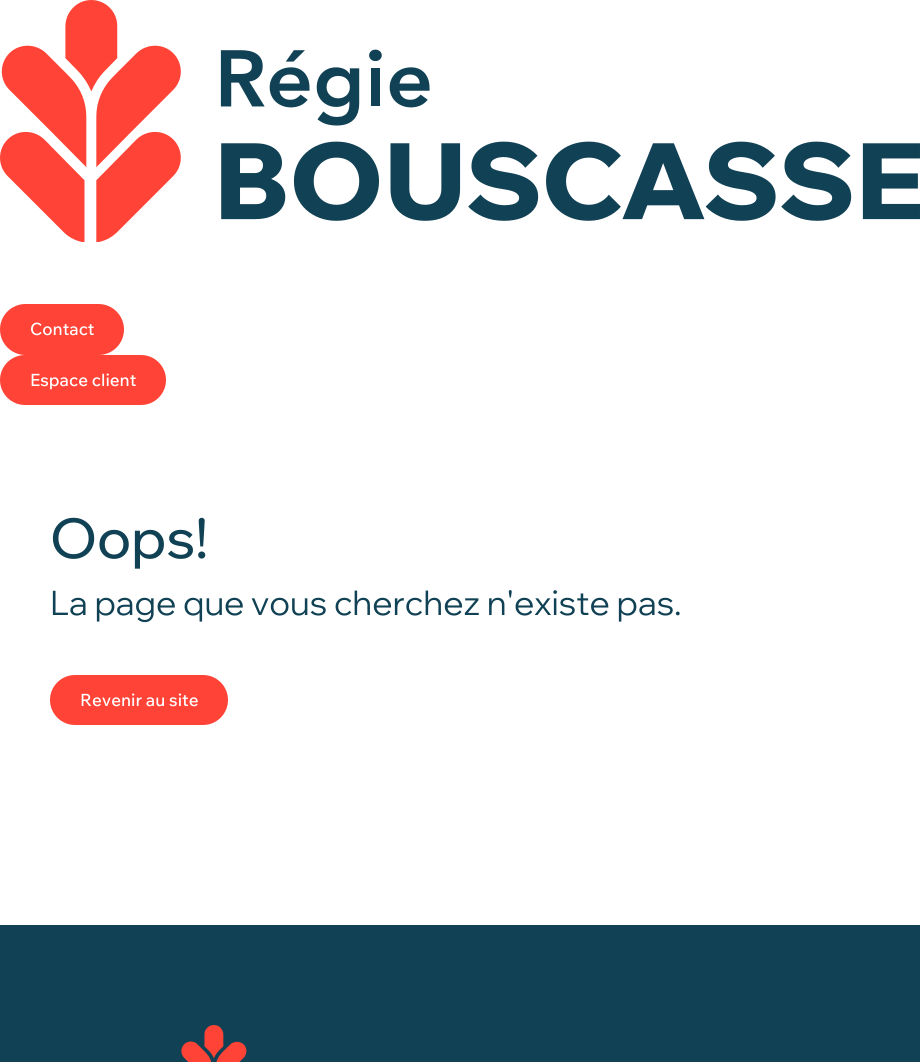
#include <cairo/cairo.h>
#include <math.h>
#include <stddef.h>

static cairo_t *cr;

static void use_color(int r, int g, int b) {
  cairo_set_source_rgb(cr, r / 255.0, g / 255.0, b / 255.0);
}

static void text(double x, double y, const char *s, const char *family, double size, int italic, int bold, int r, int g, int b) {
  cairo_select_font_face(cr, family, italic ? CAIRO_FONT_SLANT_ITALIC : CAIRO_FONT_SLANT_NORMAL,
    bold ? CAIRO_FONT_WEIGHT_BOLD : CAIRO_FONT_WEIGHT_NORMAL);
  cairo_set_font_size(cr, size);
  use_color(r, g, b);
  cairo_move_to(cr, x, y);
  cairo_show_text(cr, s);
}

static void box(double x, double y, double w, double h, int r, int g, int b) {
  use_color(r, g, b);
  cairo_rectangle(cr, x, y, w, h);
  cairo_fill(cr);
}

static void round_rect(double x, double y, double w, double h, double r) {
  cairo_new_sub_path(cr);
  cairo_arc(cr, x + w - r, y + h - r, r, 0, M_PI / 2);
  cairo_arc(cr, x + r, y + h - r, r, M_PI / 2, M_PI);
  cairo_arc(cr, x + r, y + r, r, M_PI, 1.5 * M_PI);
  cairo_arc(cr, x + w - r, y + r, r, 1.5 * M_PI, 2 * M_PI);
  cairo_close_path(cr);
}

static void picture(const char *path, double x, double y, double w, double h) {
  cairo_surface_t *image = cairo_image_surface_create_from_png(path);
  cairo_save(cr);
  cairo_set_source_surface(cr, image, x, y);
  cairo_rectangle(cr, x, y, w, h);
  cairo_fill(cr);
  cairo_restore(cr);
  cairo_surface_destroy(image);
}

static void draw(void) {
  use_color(255, 255, 255);
  cairo_paint(cr);
  picture("img_01.png", 0, 0, 920, 242);
  use_color(255, 68, 55);
  round_rect(0, 304, 124, 51, 25.5);
  cairo_fill(cr);
  round_rect(0, 355, 166, 50, 25);
  cairo_fill(cr);
  round_rect(50, 675, 178, 50, 25);
  cairo_fill(cr);
  box(0, 925, 920, 137, 17, 65, 84);
  picture("img_02.png", 181, 1025, 66, 37);
  text(30, 335, "Contact", "Wix Madefor Text Medium", 17, 0, 0, 255, 255, 255);
  text(30, 386, "Espace client", "Wix Madefor Text Medium", 17, 0, 0, 255, 255, 255);
  text(50, 558, "Oops!", "Wix Madefor Display Medium", 55, 0, 0, 17, 65, 84);
  text(50, 615, "La page que vous cherchez n'existe pas.", "Wix Madefor Display", 33.9, 0, 0, 17, 65, 84);
  text(80, 706, "Revenir au site", "Wix Madefor Text Medium", 17, 0, 0, 255, 255, 255);
}

int main(void) {
  cairo_surface_t *surface = cairo_image_surface_create(CAIRO_FORMAT_RGB24, 920, 1062);
  cr = cairo_create(surface);
  cairo_font_options_t *options = cairo_font_options_create();
  cairo_font_options_set_hint_metrics(options, CAIRO_HINT_METRICS_OFF);
  cairo_font_options_set_hint_style(options, CAIRO_HINT_STYLE_NONE);
  cairo_set_font_options(cr, options);
  cairo_set_miter_limit(cr, 4);
  draw();
  cairo_surface_write_to_png(surface, "out.png");
  cairo_font_options_destroy(options);
  cairo_destroy(cr);
  cairo_surface_destroy(surface);
  return 0;
}
